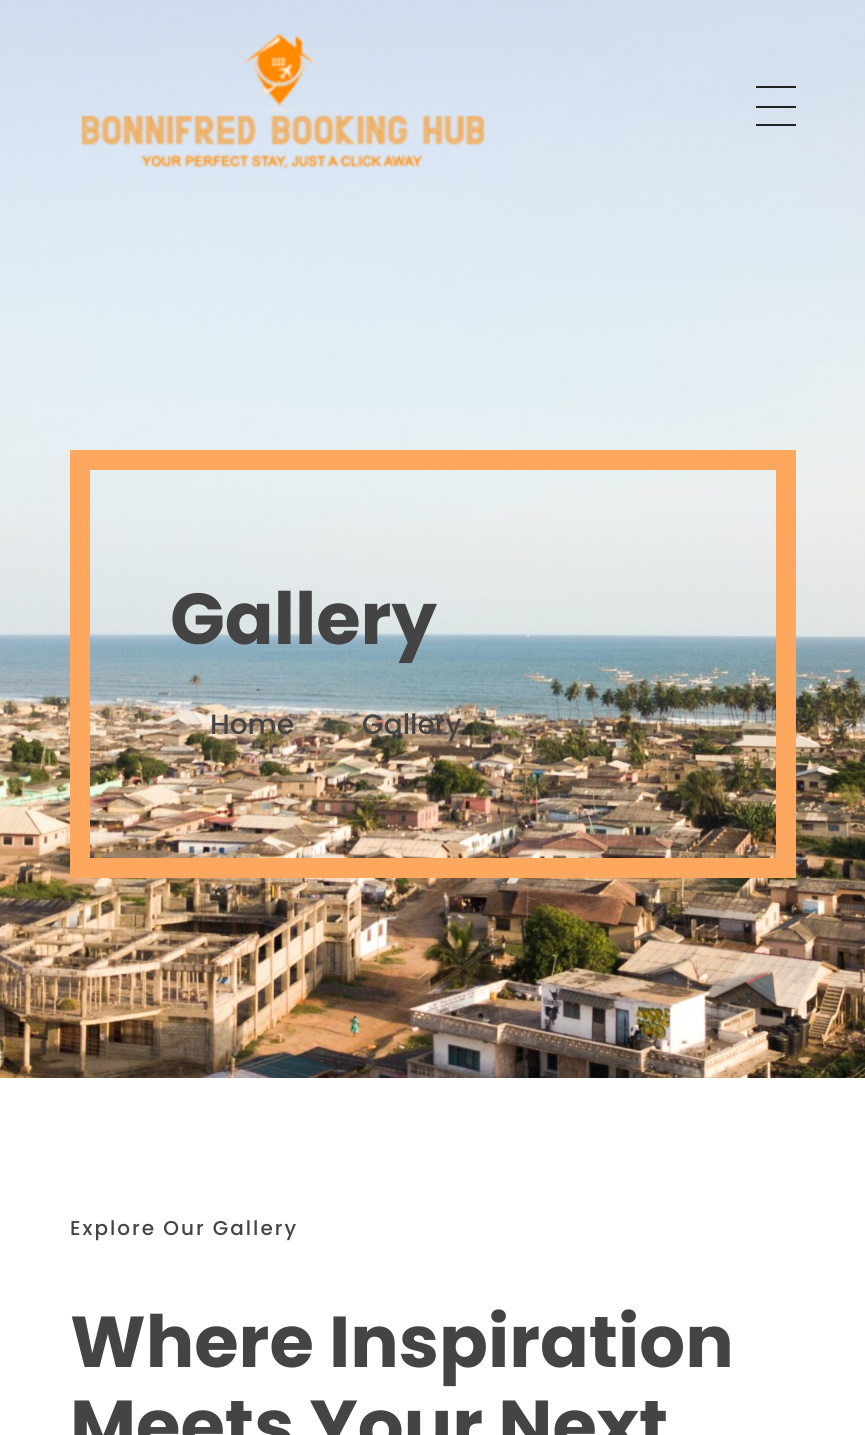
#include <cairo/cairo.h>
#include <math.h>
#include <stddef.h>

static cairo_t *cr;

static void use_color(int r, int g, int b) {
  cairo_set_source_rgb(cr, r / 255.0, g / 255.0, b / 255.0);
}

static void text(double x, double y, const char *s, const char *family, double size, int italic, int bold, int r, int g, int b) {
  cairo_select_font_face(cr, family, italic ? CAIRO_FONT_SLANT_ITALIC : CAIRO_FONT_SLANT_NORMAL,
    bold ? CAIRO_FONT_WEIGHT_BOLD : CAIRO_FONT_WEIGHT_NORMAL);
  cairo_set_font_size(cr, size);
  use_color(r, g, b);
  cairo_move_to(cr, x, y);
  cairo_show_text(cr, s);
}

static void spaced_text(double x, double y, const char *s, double letter, double word) {
  cairo_move_to(cr, x, y);
  while (*s) {
    char ch[5] = {0};
    int n = 0;
    do ch[n++] = *s++; while ((*s & 0xC0) == 0x80);
    cairo_show_text(cr, ch);
    cairo_rel_move_to(cr, letter + word * (*ch == ' '), 0);
  }
}

static void box(double x, double y, double w, double h, int r, int g, int b) {
  use_color(r, g, b);
  cairo_rectangle(cr, x, y, w, h);
  cairo_fill(cr);
}

static void picture(const char *path, double x, double y, double w, double h) {
  cairo_surface_t *image = cairo_image_surface_create_from_png(path);
  cairo_save(cr);
  cairo_set_source_surface(cr, image, x, y);
  cairo_rectangle(cr, x, y, w, h);
  cairo_fill(cr);
  cairo_restore(cr);
  cairo_surface_destroy(image);
}

static void draw(void) {
  use_color(255, 255, 255);
  cairo_paint(cr);
  picture("img_02.png", 0, 0, 865, 1078);
  picture("img_01.png", 81, 33, 404, 136);
  box(756, 86, 40, 2, 34, 34, 34);
  box(756, 106, 40, 2, 34, 34, 34);
  box(756, 124, 40, 2, 34, 34, 34);
  cairo_rectangle(cr, 80, 460, 706, 408);
  use_color(254, 167, 94);
  cairo_set_line_width(cr, 20);
  cairo_stroke(cr);
  text(170, 644, "Gallery", "Poppins", 72, 0, 1, 68, 68, 68);
  text(210, 734, "Home", "Poppins Medium", 28, 0, 0, 68, 68, 68);
  text(362, 734, "Gallery", "Poppins Medium", 28, 0, 0, 68, 68, 68);
  cairo_set_font_size(cr, 20);
  spaced_text(70, 1235, "Explore Our Gallery", 2, 0);
  text(70, 1367, "Where Inspiration", "Poppins", 72, 0, 1, 68, 68, 68);
  text(70, 1451, "Meets Your Next", "Poppins", 72, 0, 1, 68, 68, 68);
}

int main(void) {
  cairo_surface_t *surface = cairo_image_surface_create(CAIRO_FORMAT_RGB24, 865, 1435);
  cr = cairo_create(surface);
  cairo_font_options_t *options = cairo_font_options_create();
  cairo_font_options_set_hint_metrics(options, CAIRO_HINT_METRICS_OFF);
  cairo_font_options_set_hint_style(options, CAIRO_HINT_STYLE_NONE);
  cairo_set_font_options(cr, options);
  cairo_set_miter_limit(cr, 4);
  draw();
  cairo_surface_write_to_png(surface, "out.png");
  cairo_font_options_destroy(options);
  cairo_destroy(cr);
  cairo_surface_destroy(surface);
  return 0;
}
